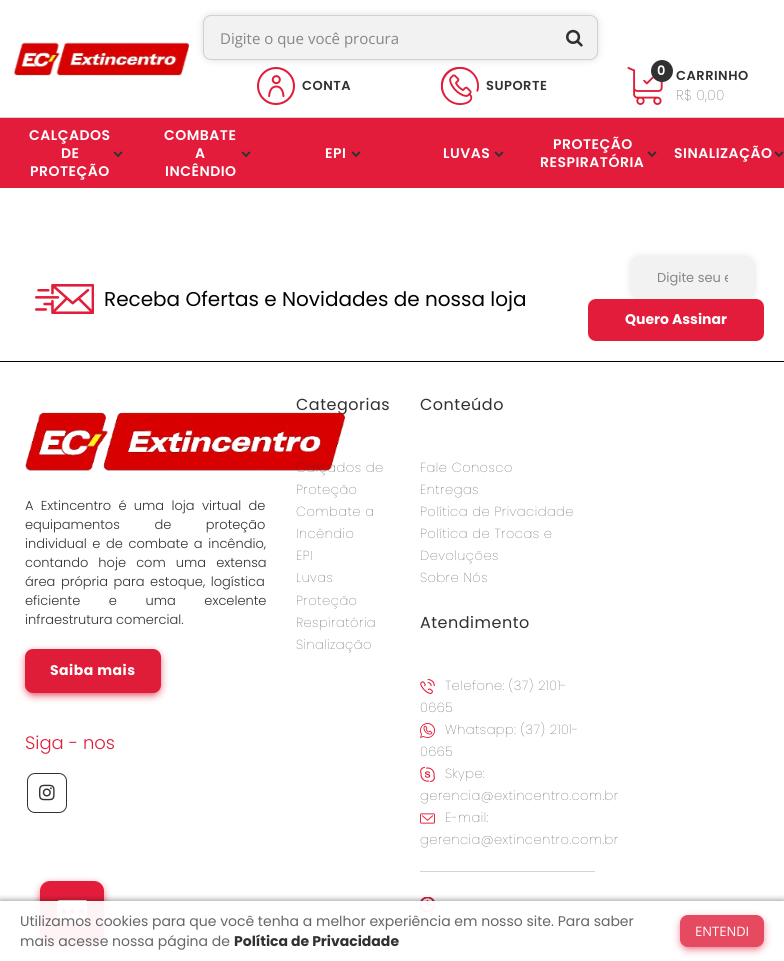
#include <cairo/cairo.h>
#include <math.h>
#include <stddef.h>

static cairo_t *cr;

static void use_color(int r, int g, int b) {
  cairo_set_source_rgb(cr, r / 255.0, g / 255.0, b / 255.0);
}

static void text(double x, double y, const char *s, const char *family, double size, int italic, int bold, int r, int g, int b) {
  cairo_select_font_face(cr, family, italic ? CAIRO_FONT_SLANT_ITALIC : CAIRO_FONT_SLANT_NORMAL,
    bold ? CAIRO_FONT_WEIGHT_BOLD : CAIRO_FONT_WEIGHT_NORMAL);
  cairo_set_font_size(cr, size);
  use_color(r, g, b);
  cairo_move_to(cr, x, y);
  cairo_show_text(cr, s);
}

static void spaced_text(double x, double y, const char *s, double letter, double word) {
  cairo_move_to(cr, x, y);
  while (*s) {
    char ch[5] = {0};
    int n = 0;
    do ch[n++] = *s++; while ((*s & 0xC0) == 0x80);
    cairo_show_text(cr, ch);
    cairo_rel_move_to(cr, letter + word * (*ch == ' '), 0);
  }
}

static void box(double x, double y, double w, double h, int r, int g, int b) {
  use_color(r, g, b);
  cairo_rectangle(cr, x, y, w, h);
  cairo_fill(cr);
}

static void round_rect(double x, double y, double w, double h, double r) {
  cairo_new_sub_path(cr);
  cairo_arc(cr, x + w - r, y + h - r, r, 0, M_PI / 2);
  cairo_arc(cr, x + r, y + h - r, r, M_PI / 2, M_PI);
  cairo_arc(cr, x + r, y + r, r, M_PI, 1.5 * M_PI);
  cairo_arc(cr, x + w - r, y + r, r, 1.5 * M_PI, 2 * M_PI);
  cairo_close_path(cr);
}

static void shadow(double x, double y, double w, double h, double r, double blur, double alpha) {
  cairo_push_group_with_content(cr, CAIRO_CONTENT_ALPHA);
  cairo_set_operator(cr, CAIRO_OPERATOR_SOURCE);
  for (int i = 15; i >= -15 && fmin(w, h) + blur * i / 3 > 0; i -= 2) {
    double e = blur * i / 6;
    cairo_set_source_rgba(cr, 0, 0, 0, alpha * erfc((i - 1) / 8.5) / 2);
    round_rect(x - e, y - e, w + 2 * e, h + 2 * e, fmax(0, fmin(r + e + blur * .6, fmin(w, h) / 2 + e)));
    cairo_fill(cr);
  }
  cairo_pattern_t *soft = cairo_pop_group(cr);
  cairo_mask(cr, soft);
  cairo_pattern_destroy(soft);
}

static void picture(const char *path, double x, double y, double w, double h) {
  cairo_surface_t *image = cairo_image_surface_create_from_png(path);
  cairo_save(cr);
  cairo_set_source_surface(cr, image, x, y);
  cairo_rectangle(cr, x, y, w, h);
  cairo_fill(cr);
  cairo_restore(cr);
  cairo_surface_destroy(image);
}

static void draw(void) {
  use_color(255, 255, 255);
  cairo_paint(cr);
  picture("img_01.png", 13, 42, 176, 34);
  use_color(204, 204, 204);
  shadow(205, 17, 391, 41, 6, 4.5, 1);
  use_color(242, 242, 242);
  round_rect(203.5, 15.5, 394, 44, 7.5);
  cairo_fill_preserve(cr);
  use_color(208, 208, 208);
  cairo_set_line_width(cr, 1);
  cairo_stroke(cr);
  picture("img_02.png", 566, 29, 17, 18);
  picture("img_03.png", 257, 67, 38, 38);
  picture("img_04.png", 441, 67, 38, 38);
  picture("img_05.png", 627, 67, 36, 38);
  use_color(49, 49, 49);
  cairo_arc(cr, 662, 71, 11, 0, 2 * M_PI);
  cairo_fill(cr);
  box(0, 118, 784, 70, 228, 28, 60);
  box(0, 117, 784, 1, 208, 208, 208);
  picture("img_06.png", 113, 151, 10, 7);
  picture("img_06.png", 241, 151, 10, 7);
  picture("img_06.png", 351, 151, 10, 7);
  picture("img_06.png", 494, 151, 10, 7);
  picture("img_06.png", 647, 151, 10, 7);
  picture("img_06.png", 774, 151, 10, 7);
  box(0, 361, 784, 1, 0, 0, 0);
  picture("img_07.png", 35, 284, 59, 30);
  use_color(204, 204, 204);
  shadow(633, 259, 119, 38, 6, 4.5, 1);
  use_color(242, 242, 242);
  round_rect(631, 257, 123, 42, 8);
  cairo_fill(cr);
  use_color(228, 28, 60);
  round_rect(589, 300, 174, 40, 7);
  cairo_fill_preserve(cr);
  cairo_set_line_width(cr, 2);
  cairo_stroke(cr);
  use_color(223, 29, 57);
  shadow(27, 654, 132, 40, 6, 4.5, 1);
  use_color(224, 29, 57);
  round_rect(26, 650, 134, 42, 7);
  cairo_fill_preserve(cr);
  cairo_stroke(cr);
  round_rect(27.5, 773.5, 39, 39, 7.5);
  use_color(49, 49, 49);
  cairo_set_line_width(cr, 1);
  cairo_stroke(cr);
  picture("img_09.png", 39, 784, 16, 17);
  box(420, 871, 175, 1, 212, 213, 214);
  picture("img_10.png", 420, 679, 15, 15);
  picture("img_11.png", 420, 723, 15, 15);
  picture("img_12.png", 420, 767, 15, 15);
  picture("img_13.png", 420, 813, 15, 11);
  picture("img_14.png", 420, 897, 15, 15);
  use_color(228, 28, 60);
  shadow(42, 886, 60, 60, 8, 4.5, 1);
  use_color(228, 28, 60);
  round_rect(40, 881, 64, 64, 10);
  cairo_fill(cr);
  picture("img_15.png", 57, 900, 30, 26);
  cairo_save(cr);
  cairo_rectangle(cr, 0, 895, 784, 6);
  cairo_clip(cr);
  use_color(0, 0, 0);
  shadow(0, 901, 784, 60, 0, 3.5, 0.5);
  cairo_restore(cr);
  cairo_set_source_rgba(cr, 1, 1, 1, 0.95);
  cairo_rectangle(cr, 32, 901, 403, 55);
  cairo_fill(cr);
  use_color(229, 74, 97);
  shadow(682, 920, 80, 28, 6, 4.5, 1);
  use_color(230, 74, 97);
  round_rect(680.5, 915.5, 83, 31, 7.5);
  cairo_fill_preserve(cr);
  cairo_stroke(cr);
  text(220, 44, "Digite o que você procura", "Open Sans", 15, 0, 0, 134, 134, 134);
  cairo_select_font_face(cr, "Poppins SemiBold", CAIRO_FONT_SLANT_NORMAL, CAIRO_FONT_WEIGHT_NORMAL);
  cairo_set_font_size(cr, 13);
  use_color(49, 49, 49);
  spaced_text(302, 90, "CONTA", 0.5, 0);
  spaced_text(486, 90, "SUPORTE", 0.5, 0);
  use_color(255, 255, 255);
  spaced_text(657, 75, "0", 0.5, 0);
  use_color(49, 49, 49);
  spaced_text(676, 80, "CARRINHO", 0.5, 0);
  cairo_select_font_face(cr, "Poppins ExtraLight", CAIRO_FONT_SLANT_NORMAL, CAIRO_FONT_WEIGHT_NORMAL);
  cairo_set_font_size(cr, 14);
  spaced_text(676, 100, "R$ 0,00", 0.5, 0);
  cairo_select_font_face(cr, "Poppins SemiBold", CAIRO_FONT_SLANT_NORMAL, CAIRO_FONT_WEIGHT_NORMAL);
  use_color(255, 255, 255);
  spaced_text(29, 140, "CALÇADOS", 0.5, 0);
  spaced_text(61, 158, "DE", 0.5, 0);
  spaced_text(30, 176, "PROTEÇÃO", 0.5, 0);
  spaced_text(164, 140, "COMBATE", 0.5, 0);
  spaced_text(195, 158, "A", 0.5, 0);
  spaced_text(165, 176, "INCÊNDIO", 0.5, 0);
  spaced_text(325, 158, "EPI", 0.5, 0);
  spaced_text(443, 158, "LUVAS", 0.5, 0);
  spaced_text(553, 149, "PROTEÇÃO", 0.5, 0);
  spaced_text(540, 167, "RESPIRATÓRIA", 0.5, 0);
  spaced_text(674, 158, "SINALIZAÇÃO", 0.5, 0);
  text(104, 306, "Receba Ofertas e Novidades de nossa loja", "Poppins", 20, 0, 0, 0, 0, 0);
  cairo_save(cr);
  cairo_rectangle(cr, 657, 268, 71, 20);
  cairo_clip(cr);
  text(657, 282, "Digite seu e", "Poppins", 13, 0, 0, 134, 134, 134);
  cairo_restore(cr);
  text(625, 324, "Quero Assinar", "Poppins", 14, 0, 1, 255, 255, 255);
  cairo_select_font_face(cr, "Poppins Light", CAIRO_FONT_SLANT_NORMAL, CAIRO_FONT_WEIGHT_NORMAL);
  cairo_set_font_size(cr, 13);
  use_color(49, 49, 49);
  spaced_text(25, 510, "A Extincentro é uma loja virtual de", 0, 3.75);
  spaced_text(25, 529, "equipamentos de proteção", 0, 31);
  spaced_text(25, 548, "individual e de combate a incêndio,", 0, 2);
  spaced_text(25, 567, "contando hoje com uma extensa", 0, 6.5);
  spaced_text(25, 586, "área própria para estoque, logística", 0, 2);
  spaced_text(25, 605, "eficiente e uma excelente", 0, 25);
  text(25, 624, "infraestrutura comercial.", "Poppins Light", 13, 0, 0, 49, 49, 49);
  cairo_select_font_face(cr, "Poppins", CAIRO_FONT_SLANT_NORMAL, CAIRO_FONT_WEIGHT_BOLD);
  cairo_set_font_size(cr, 14);
  use_color(255, 255, 255);
  spaced_text(50, 675, "Saiba mais", 0.5, 0);
  text(25, 749, "Siga - nos", "Poppins Light", 18, 0, 0, 225, 29, 57);
  cairo_select_font_face(cr, "Poppins", CAIRO_FONT_SLANT_NORMAL, CAIRO_FONT_WEIGHT_NORMAL);
  cairo_set_font_size(cr, 16);
  use_color(49, 49, 49);
  spaced_text(296, 410, "Categorias", 0.5, 0);
  picture("img_08.png", 25, 412, 320, 59);
  cairo_select_font_face(cr, "Poppins ExtraLight", CAIRO_FONT_SLANT_NORMAL, CAIRO_FONT_WEIGHT_NORMAL);
  cairo_set_font_size(cr, 13);
  spaced_text(296, 472, "Calçados de", 0.5, 0);
  spaced_text(296, 494, "Proteção", 0.5, 0);
  spaced_text(296, 516, "Combate a", 0.5, 0);
  spaced_text(296, 538, "Incêndio", 0.5, 0);
  spaced_text(296, 560, "EPI", 0.5, 0);
  spaced_text(296, 582, "Luvas", 0.5, 0);
  spaced_text(296, 605, "Proteção", 0.5, 0);
  spaced_text(296, 627, "Respiratória", 0.5, 0);
  spaced_text(296, 649, "Sinalização", 0.5, 0);
  cairo_select_font_face(cr, "Poppins", CAIRO_FONT_SLANT_NORMAL, CAIRO_FONT_WEIGHT_NORMAL);
  cairo_set_font_size(cr, 16);
  spaced_text(420, 410, "Conteúdo", 0.5, 0);
  cairo_select_font_face(cr, "Poppins ExtraLight", CAIRO_FONT_SLANT_NORMAL, CAIRO_FONT_WEIGHT_NORMAL);
  cairo_set_font_size(cr, 13);
  spaced_text(420, 472, "Fale Conosco", 0.5, 0);
  spaced_text(420, 494, "Entregas", 0.5, 0);
  spaced_text(420, 516, "Política de Privacidade", 0.5, 0);
  spaced_text(420, 538, "Política de Trocas e", 0.5, 0);
  spaced_text(420, 560, "Devoluções", 0.5, 0);
  spaced_text(420, 582, "Sobre Nós", 0.5, 0);
  cairo_select_font_face(cr, "Poppins", CAIRO_FONT_SLANT_NORMAL, CAIRO_FONT_WEIGHT_NORMAL);
  cairo_set_font_size(cr, 16);
  spaced_text(420, 628, "Atendimento", 0.5, 0);
  cairo_select_font_face(cr, "Poppins ExtraLight", CAIRO_FONT_SLANT_NORMAL, CAIRO_FONT_WEIGHT_NORMAL);
  cairo_set_font_size(cr, 13);
  spaced_text(445, 690, "Telefone: (37) 2101-", 0.5, 0);
  spaced_text(420, 712, "0665", 0.5, 0);
  spaced_text(445, 734, "Whatsapp: (37) 2101-", 0.5, 0);
  spaced_text(420, 756, "0665", 0.5, 0);
  spaced_text(445, 778, "Skype:", 0.5, 0);
  spaced_text(420, 800, "gerencia@extincentro.com.br", 0.5, 0);
  spaced_text(445, 822, "E-mail:", 0.5, 0);
  spaced_text(420, 844, "gerencia@extincentro.com.br", 0.5, 0);
  text(20, 926, "Utilizamos cookies para que você tenha a melhor experiência em nosso site. Para saber", "Poppins", 14, 0, 0, 102, 102, 102);
  text(20, 946, "mais acesse nossa página de", "Poppins", 14, 0, 0, 102, 102, 102);
  text(234, 946, "Política de Privacidade", "Poppins", 14, 0, 1, 49, 49, 49);
  text(695, 936, "ENTENDI", "Open Sans", 13, 0, 0, 255, 255, 255);
}

int main(void) {
  cairo_surface_t *surface = cairo_image_surface_create(CAIRO_FORMAT_RGB24, 784, 961);
  cr = cairo_create(surface);
  cairo_font_options_t *options = cairo_font_options_create();
  cairo_font_options_set_hint_metrics(options, CAIRO_HINT_METRICS_OFF);
  cairo_font_options_set_hint_style(options, CAIRO_HINT_STYLE_NONE);
  cairo_set_font_options(cr, options);
  cairo_set_miter_limit(cr, 4);
  draw();
  cairo_surface_write_to_png(surface, "out.png");
  cairo_font_options_destroy(options);
  cairo_destroy(cr);
  cairo_surface_destroy(surface);
  return 0;
}
